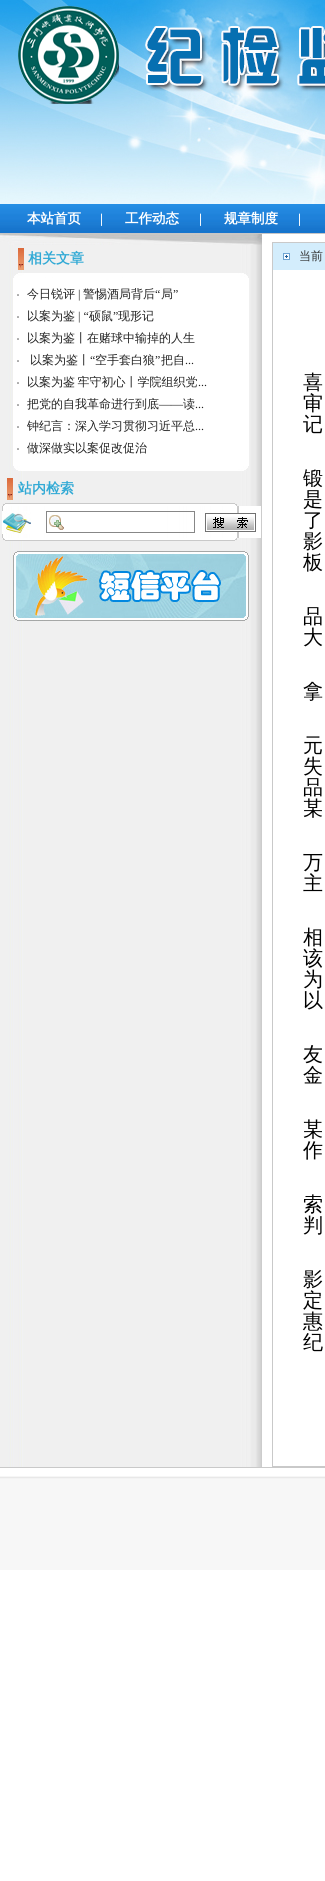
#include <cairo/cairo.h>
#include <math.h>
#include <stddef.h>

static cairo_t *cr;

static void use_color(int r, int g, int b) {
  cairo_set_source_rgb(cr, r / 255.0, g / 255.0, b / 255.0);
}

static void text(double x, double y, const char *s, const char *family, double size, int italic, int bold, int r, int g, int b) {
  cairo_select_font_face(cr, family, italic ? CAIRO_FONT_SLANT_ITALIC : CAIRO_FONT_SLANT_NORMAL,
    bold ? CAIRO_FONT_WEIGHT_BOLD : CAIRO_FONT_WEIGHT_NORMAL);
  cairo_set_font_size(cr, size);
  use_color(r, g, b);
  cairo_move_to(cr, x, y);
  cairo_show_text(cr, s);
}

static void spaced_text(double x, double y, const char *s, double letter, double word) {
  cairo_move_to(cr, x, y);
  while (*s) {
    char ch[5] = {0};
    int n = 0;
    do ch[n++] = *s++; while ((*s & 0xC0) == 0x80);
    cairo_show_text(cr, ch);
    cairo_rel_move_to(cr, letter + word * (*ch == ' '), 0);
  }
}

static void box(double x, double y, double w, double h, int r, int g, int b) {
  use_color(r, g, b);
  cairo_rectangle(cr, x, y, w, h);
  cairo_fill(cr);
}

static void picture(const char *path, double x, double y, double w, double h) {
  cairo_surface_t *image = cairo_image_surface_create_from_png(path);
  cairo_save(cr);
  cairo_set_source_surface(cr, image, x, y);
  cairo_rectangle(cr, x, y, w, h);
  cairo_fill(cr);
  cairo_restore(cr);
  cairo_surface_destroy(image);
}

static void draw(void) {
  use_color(255, 255, 255);
  cairo_paint(cr);
  picture("img_01.png", 0, 0, 325, 204);
  picture("img_02.png", 18, 6, 307, 98);
  picture("img_03.png", 0, 204, 325, 30);
  picture("img_04.png", 0, 245, 262, 1222);
  picture("img_05.png", 0, 234, 262, 11);
  picture("img_06.png", 18, 248, 6, 22);
  picture("img_07.png", 14, 273, 234, 5);
  box(13, 278, 236, 188, 255, 255, 255);
  picture("img_08.png", 14, 466, 234, 5);
  picture("img_06.png", 7, 478, 6, 22);
  picture("img_09.png", 3, 503, 234, 3);
  box(239, 506, 22, 32, 255, 255, 255);
  picture("img_10.png", 2, 506, 237, 32);
  picture("img_11.png", 2, 511, 29, 23);
  picture("img_12.png", 49, 515, 15, 15);
  cairo_rectangle(cr, 46.5, 511.5, 148, 21);
  use_color(135, 135, 135);
  cairo_set_line_width(cr, 1);
  cairo_stroke(cr);
  picture("img_13.png", 205, 513, 51, 19);
  picture("img_14.png", 3, 538, 234, 3);
  picture("img_15.png", 13, 551, 236, 70);
  cairo_rectangle(cr, 272.5, 242.5, 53, 1224);
  use_color(201, 201, 201);
  cairo_stroke(cr);
  box(273, 243, 52, 27, 211, 237, 252);
  picture("img_16.png", 283, 253, 7, 7);
  box(0, 1467, 325, 1, 201, 201, 201);
  picture("img_17.png", 0, 1476, 325, 11);
  box(0, 1487, 325, 83, 247, 247, 247);
  text(27, 223, "本站首页", "WenQuanYi Zen Hei", 13.5, 0, 1, 255, 255, 255);
  text(100, 223, "|", "Liberation Serif", 13.5, 0, 1, 255, 255, 255);
  text(125, 223, "工作动态", "WenQuanYi Zen Hei", 13.5, 0, 1, 255, 255, 255);
  text(199, 223, "|", "Liberation Serif", 13.5, 0, 1, 255, 255, 255);
  text(224, 223, "规章制度", "WenQuanYi Zen Hei", 13.5, 0, 1, 255, 255, 255);
  text(298, 223, "|", "Liberation Serif", 13.5, 0, 1, 255, 255, 255);
  text(28, 263, "相关文章", "WenQuanYi Zen Hei", 14, 0, 1, 51, 170, 213);
  text(16, 299, "·", "Liberation Serif", 12, 0, 0, 34, 34, 34);
  text(27, 298, "今日锐评", "WenQuanYi Zen Hei Medium", 12, 0, 0, 34, 34, 34);
  text(78, 298, "|", "Liberation Serif", 12, 0, 0, 34, 34, 34);
  text(83, 298, "警惕酒局背后", "WenQuanYi Zen Hei Medium", 12, 0, 0, 34, 34, 34);
  text(155, 298, "“", "Liberation Serif", 12, 0, 0, 34, 34, 34);
  text(161, 298, "局", "WenQuanYi Zen Hei Medium", 12, 0, 0, 34, 34, 34);
  text(173, 298, "”", "Liberation Serif", 12, 0, 0, 34, 34, 34);
  text(16, 321, "·", "Liberation Serif", 12, 0, 0, 34, 34, 34);
  text(27, 320, "以案为鉴", "WenQuanYi Zen Hei Medium", 12, 0, 0, 34, 34, 34);
  text(78, 320, "| “", "Liberation Serif", 12, 0, 0, 34, 34, 34);
  text(89, 320, "硕鼠", "WenQuanYi Zen Hei Medium", 12, 0, 0, 34, 34, 34);
  text(113, 320, "”", "Liberation Serif", 12, 0, 0, 34, 34, 34);
  text(118, 320, "现形记", "WenQuanYi Zen Hei Medium", 12, 0, 0, 34, 34, 34);
  text(16, 343, "·", "Liberation Serif", 12, 0, 0, 34, 34, 34);
  text(27, 342, "以案为鉴丨在赌球中输掉的人生", "WenQuanYi Zen Hei Medium", 12, 0, 0, 34, 34, 34);
  text(16, 365, "·", "Liberation Serif", 12, 0, 0, 34, 34, 34);
  text(30, 364, "以案为鉴丨", "WenQuanYi Zen Hei Medium", 12, 0, 0, 34, 34, 34);
  text(90, 364, "“", "Liberation Serif", 12, 0, 0, 34, 34, 34);
  text(95, 364, "空手套白狼", "WenQuanYi Zen Hei Medium", 12, 0, 0, 34, 34, 34);
  text(155, 364, "”", "Liberation Serif", 12, 0, 0, 34, 34, 34);
  text(161, 364, "把自", "WenQuanYi Zen Hei Medium", 12, 0, 0, 34, 34, 34);
  text(185, 364, "...", "Liberation Serif", 12, 0, 0, 34, 34, 34);
  text(16, 387, "·", "Liberation Serif", 12, 0, 0, 34, 34, 34);
  cairo_select_font_face(cr, "WenQuanYi Zen Hei Medium", CAIRO_FONT_SLANT_NORMAL, CAIRO_FONT_WEIGHT_NORMAL);
  spaced_text(27, 386, "以案为鉴 牢守初心丨学院组织党", 0, -1);
  text(198, 386, "...", "Liberation Serif", 12, 0, 0, 34, 34, 34);
  text(16, 409, "·", "Liberation Serif", 12, 0, 0, 34, 34, 34);
  text(27, 408, "把党的自我革命进行到底", "WenQuanYi Zen Hei Medium", 12, 0, 0, 34, 34, 34);
  text(159, 408, "——", "Liberation Serif", 12, 0, 0, 34, 34, 34);
  text(183, 408, "读", "WenQuanYi Zen Hei Medium", 12, 0, 0, 34, 34, 34);
  text(195, 408, "...", "Liberation Serif", 12, 0, 0, 34, 34, 34);
  text(16, 431, "·", "Liberation Serif", 12, 0, 0, 34, 34, 34);
  text(27, 430, "钟纪言：深入学习贯彻习近平总", "WenQuanYi Zen Hei Medium", 12, 0, 0, 34, 34, 34);
  text(195, 430, "...", "Liberation Serif", 12, 0, 0, 34, 34, 34);
  text(16, 453, "·", "Liberation Serif", 12, 0, 0, 34, 34, 34);
  text(27, 452, "做深做实以案促改促治", "WenQuanYi Zen Hei Medium", 12, 0, 0, 34, 34, 34);
  text(18, 493, "站内检索", "WenQuanYi Zen Hei", 14, 0, 1, 51, 170, 213);
  text(299, 260, "当前", "WenQuanYi Zen Hei Medium", 12, 0, 0, 51, 51, 51);
  cairo_set_font_size(cr, 20);
  use_color(0, 0, 0);
  spaced_text(303, 389, "喜", 1, 0);
  text(303, 410, "审", "WenQuanYi Zen Hei Medium", 20, 0, 0, 0, 0, 0);
  text(303, 431, "记", "WenQuanYi Zen Hei Medium", 20, 0, 0, 0, 0, 0);
  text(303, 485, "锻", "WenQuanYi Zen Hei Medium", 20, 0, 0, 0, 0, 0);
  spaced_text(303, 506, "是", 1, 0);
  text(303, 527, "了", "WenQuanYi Zen Hei Medium", 20, 0, 0, 0, 0, 0);
  text(303, 548, "影", "WenQuanYi Zen Hei Medium", 20, 0, 0, 0, 0, 0);
  text(303, 569, "板", "WenQuanYi Zen Hei Medium", 20, 0, 0, 0, 0, 0);
  text(303, 623, "品", "WenQuanYi Zen Hei Medium", 20, 0, 0, 0, 0, 0);
  text(303, 644, "大", "WenQuanYi Zen Hei Medium", 20, 0, 0, 0, 0, 0);
  text(303, 698, "拿", "WenQuanYi Zen Hei Medium", 20, 0, 0, 0, 0, 0);
  text(303, 752, "元", "WenQuanYi Zen Hei Medium", 20, 0, 0, 0, 0, 0);
  text(303, 773, "失", "WenQuanYi Zen Hei Medium", 20, 0, 0, 0, 0, 0);
  text(303, 794, "品", "WenQuanYi Zen Hei Medium", 20, 0, 0, 0, 0, 0);
  text(303, 815, "某", "WenQuanYi Zen Hei Medium", 20, 0, 0, 0, 0, 0);
  text(303, 869, "万", "WenQuanYi Zen Hei Medium", 20, 0, 0, 0, 0, 0);
  text(303, 890, "主", "WenQuanYi Zen Hei Medium", 20, 0, 0, 0, 0, 0);
  spaced_text(303, 944, "相", 1, 0);
  spaced_text(303, 965, "该", 2, 0);
  text(303, 986, "为", "WenQuanYi Zen Hei Medium", 20, 0, 0, 0, 0, 0);
  text(303, 1007, "以", "WenQuanYi Zen Hei Medium", 20, 0, 0, 0, 0, 0);
  spaced_text(303, 1061, "友", 1, 0);
  text(303, 1082, "金", "WenQuanYi Zen Hei Medium", 20, 0, 0, 0, 0, 0);
  spaced_text(303, 1136, "某", 1, 0);
  text(303, 1157, "作", "WenQuanYi Zen Hei Medium", 20, 0, 0, 0, 0, 0);
  spaced_text(303, 1211, "索", 1, 0);
  text(303, 1232, "判", "WenQuanYi Zen Hei Medium", 20, 0, 0, 0, 0, 0);
  text(303, 1286, "影", "WenQuanYi Zen Hei Medium", 20, 0, 0, 0, 0, 0);
  text(303, 1307, "定", "WenQuanYi Zen Hei Medium", 20, 0, 0, 0, 0, 0);
  text(303, 1328, "惠", "WenQuanYi Zen Hei Medium", 20, 0, 0, 0, 0, 0);
  text(303, 1349, "纪", "WenQuanYi Zen Hei Medium", 20, 0, 0, 0, 0, 0);
}

int main(void) {
  cairo_surface_t *surface = cairo_image_surface_create(CAIRO_FORMAT_RGB24, 325, 1881);
  cr = cairo_create(surface);
  cairo_font_options_t *options = cairo_font_options_create();
  cairo_font_options_set_hint_metrics(options, CAIRO_HINT_METRICS_OFF);
  cairo_font_options_set_hint_style(options, CAIRO_HINT_STYLE_NONE);
  cairo_set_font_options(cr, options);
  cairo_set_miter_limit(cr, 4);
  draw();
  cairo_surface_write_to_png(surface, "out.png");
  cairo_font_options_destroy(options);
  cairo_destroy(cr);
  cairo_surface_destroy(surface);
  return 0;
}
